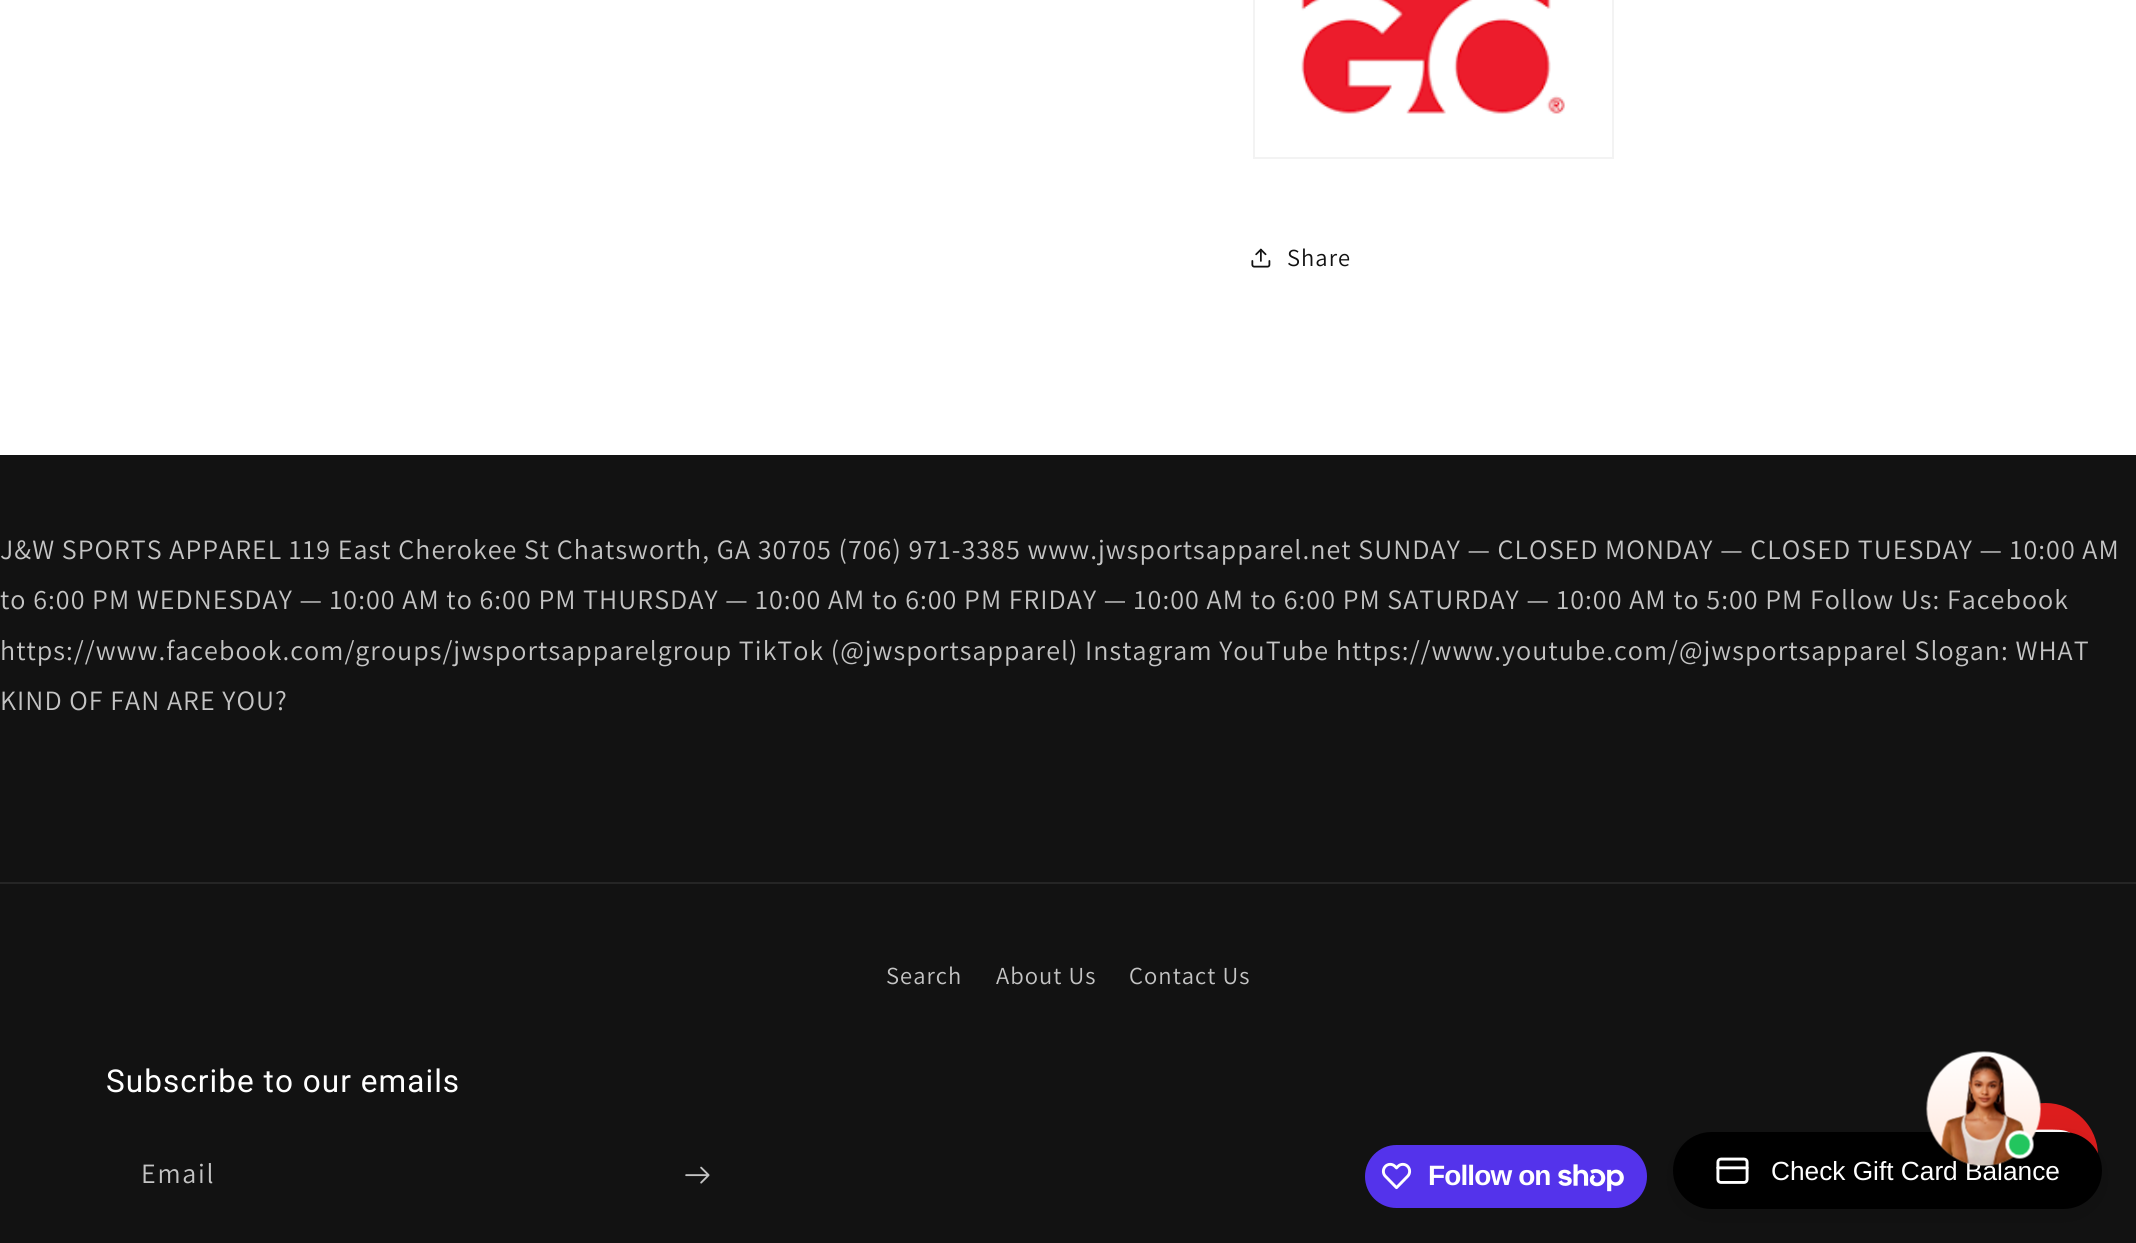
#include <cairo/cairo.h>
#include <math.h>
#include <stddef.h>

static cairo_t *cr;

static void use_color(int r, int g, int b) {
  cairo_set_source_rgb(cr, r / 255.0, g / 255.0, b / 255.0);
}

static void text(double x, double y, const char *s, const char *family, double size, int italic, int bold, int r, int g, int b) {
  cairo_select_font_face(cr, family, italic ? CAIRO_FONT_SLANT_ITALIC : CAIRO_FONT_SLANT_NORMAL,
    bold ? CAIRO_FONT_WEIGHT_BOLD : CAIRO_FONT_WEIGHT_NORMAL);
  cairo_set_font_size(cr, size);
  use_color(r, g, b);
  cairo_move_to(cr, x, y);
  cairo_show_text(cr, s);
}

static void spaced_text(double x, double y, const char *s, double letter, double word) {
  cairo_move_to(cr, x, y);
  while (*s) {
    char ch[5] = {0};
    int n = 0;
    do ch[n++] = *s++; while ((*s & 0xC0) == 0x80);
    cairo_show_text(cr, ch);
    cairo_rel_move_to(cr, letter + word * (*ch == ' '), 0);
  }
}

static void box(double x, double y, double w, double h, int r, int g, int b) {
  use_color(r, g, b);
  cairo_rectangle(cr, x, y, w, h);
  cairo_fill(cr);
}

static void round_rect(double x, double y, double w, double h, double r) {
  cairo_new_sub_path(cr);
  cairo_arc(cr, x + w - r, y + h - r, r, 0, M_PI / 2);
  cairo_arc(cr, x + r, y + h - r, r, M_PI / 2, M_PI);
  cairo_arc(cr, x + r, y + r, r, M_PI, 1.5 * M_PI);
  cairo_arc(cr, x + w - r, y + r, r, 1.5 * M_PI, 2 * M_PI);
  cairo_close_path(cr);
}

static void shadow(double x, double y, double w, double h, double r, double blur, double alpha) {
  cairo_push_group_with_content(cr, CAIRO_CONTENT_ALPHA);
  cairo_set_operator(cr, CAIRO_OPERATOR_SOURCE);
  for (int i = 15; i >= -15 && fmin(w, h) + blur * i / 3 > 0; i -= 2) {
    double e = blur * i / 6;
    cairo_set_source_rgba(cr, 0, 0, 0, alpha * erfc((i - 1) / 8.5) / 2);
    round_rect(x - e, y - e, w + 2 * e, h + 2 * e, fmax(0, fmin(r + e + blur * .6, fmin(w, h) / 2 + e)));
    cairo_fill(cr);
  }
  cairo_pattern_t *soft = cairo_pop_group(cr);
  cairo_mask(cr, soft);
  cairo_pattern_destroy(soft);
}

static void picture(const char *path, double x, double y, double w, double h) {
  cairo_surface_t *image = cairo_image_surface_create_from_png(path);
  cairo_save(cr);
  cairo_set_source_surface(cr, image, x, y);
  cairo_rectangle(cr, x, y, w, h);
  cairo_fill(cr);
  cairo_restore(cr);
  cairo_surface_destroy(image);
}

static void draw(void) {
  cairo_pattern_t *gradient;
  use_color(255, 255, 255);
  cairo_paint(cr);
  gradient = cairo_pattern_create_linear(-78, 1017, 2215, 227);
  cairo_pattern_add_color_stop_rgba(gradient, 0.99, 0.071, 0.071, 0.071, 1);
  cairo_pattern_add_color_stop_rgba(gradient, 1, 0.02, 0.02, 0.02, 1);
  cairo_set_source(cr, gradient);
  cairo_pattern_destroy(gradient);
  cairo_rectangle(cr, 0, 455, 2136, 788);
  cairo_fill(cr);
  cairo_rectangle(cr, 1254, -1, 359, 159);
  use_color(243, 243, 243);
  cairo_stroke(cr);
  picture("img_01.png", 1301, 0, 264, 114);
  picture("img_02.png", 1251, 248, 20, 20);
  box(0, 882, 2136, 2, 37, 37, 37);
  picture("img_03.png", 685, 1166, 25, 18);
  use_color(84, 51, 235);
  round_rect(1365, 1145, 282, 63, 31.5);
  cairo_fill(cr);
  picture("img_04.png", 1381, 1162, 31, 28);
  picture("img_05.png", 1558, 1164, 66, 28);
  use_color(221, 29, 29);
  cairo_arc(cr, 2045.5, 1155.5, 52.5, 0, 2 * M_PI);
  cairo_fill(cr);
  picture("img_07.png", 2034, 1129, 37, 4);
  use_color(0, 0, 0);
  shadow(1673, 1139, 429, 77, 38.5, 13, 0.1);
  use_color(0, 0, 0);
  round_rect(1673, 1132, 429, 77, 38.5);
  cairo_fill(cr);
  picture("img_08.png", 1716, 1157, 33, 27);
  cairo_select_font_face(cr, "Assistant", CAIRO_FONT_SLANT_NORMAL, CAIRO_FONT_WEIGHT_NORMAL);
  cairo_set_font_size(cr, 24.5);
  use_color(18, 18, 18);
  spaced_text(1287, 266, "Share", 1.05, 0);
  cairo_set_font_size(cr, 28);
  use_color(196, 196, 196);
  spaced_text(0, 559, "J&W SPORTS APPAREL 119 East Cherokee St Chatsworth, GA 30705 (706) 971-3385 www.jwsportsapparel.net SUNDAY — CLOSED MONDAY — CLOSED TUESDAY — 10:00 AM", 1.05, 0);
  spaced_text(0, 609, "to 6:00 PM WEDNESDAY — 10:00 AM to 6:00 PM THURSDAY — 10:00 AM to 6:00 PM FRIDAY — 10:00 AM to 6:00 PM SATURDAY — 10:00 AM to 5:00 PM Follow Us: Facebook", 1.05, 0);
  spaced_text(0, 660, "https://www.facebook.com/groups/jwsportsapparelgroup TikTok (@jwsportsapparel) Instagram YouTube https://www.youtube.com/@jwsportsapparel Slogan: WHAT", 1.05, 0);
  spaced_text(0, 710, "KIND OF FAN ARE YOU?", 1.05, 0);
  cairo_set_font_size(cr, 24.5);
  spaced_text(886, 984, "Search", 1.05, 0);
  spaced_text(996, 984, "About Us", 1.05, 0);
  spaced_text(1129, 984, "Contact Us", 1.05, 0);
  cairo_select_font_face(cr, "Roboto", CAIRO_FONT_SLANT_NORMAL, CAIRO_FONT_WEIGHT_NORMAL);
  cairo_set_font_size(cr, 31.5);
  use_color(255, 255, 255);
  spaced_text(106, 1092, "Subscribe to our emails", 1.05, 0);
  cairo_select_font_face(cr, "Assistant", CAIRO_FONT_SLANT_NORMAL, CAIRO_FONT_WEIGHT_NORMAL);
  cairo_set_font_size(cr, 28);
  use_color(196, 196, 196);
  spaced_text(141, 1183, "Email", 1.75, 0);
  cairo_select_font_face(cr, "Liberation Sans", CAIRO_FONT_SLANT_NORMAL, CAIRO_FONT_WEIGHT_BOLD);
  use_color(255, 255, 255);
  spaced_text(1428, 1185, "Follow on", -0.9, 0);
  text(1771, 1180, "Check Gift Card Balance", "Liberation Sans", 26.25, 0, 0, 255, 255, 255);
  picture("img_06.png", 1926, 1051, 115, 115);
}

int main(void) {
  cairo_surface_t *surface = cairo_image_surface_create(CAIRO_FORMAT_RGB24, 2136, 1243);
  cr = cairo_create(surface);
  cairo_font_options_t *options = cairo_font_options_create();
  cairo_font_options_set_hint_metrics(options, CAIRO_HINT_METRICS_OFF);
  cairo_font_options_set_hint_style(options, CAIRO_HINT_STYLE_NONE);
  cairo_set_font_options(cr, options);
  cairo_set_miter_limit(cr, 4);
  draw();
  cairo_surface_write_to_png(surface, "out.png");
  cairo_font_options_destroy(options);
  cairo_destroy(cr);
  cairo_surface_destroy(surface);
  return 0;
}
